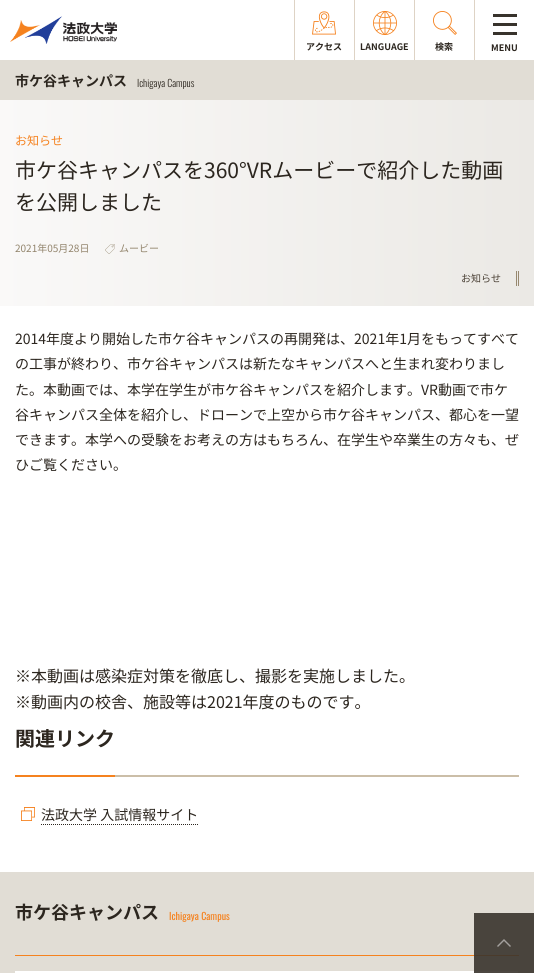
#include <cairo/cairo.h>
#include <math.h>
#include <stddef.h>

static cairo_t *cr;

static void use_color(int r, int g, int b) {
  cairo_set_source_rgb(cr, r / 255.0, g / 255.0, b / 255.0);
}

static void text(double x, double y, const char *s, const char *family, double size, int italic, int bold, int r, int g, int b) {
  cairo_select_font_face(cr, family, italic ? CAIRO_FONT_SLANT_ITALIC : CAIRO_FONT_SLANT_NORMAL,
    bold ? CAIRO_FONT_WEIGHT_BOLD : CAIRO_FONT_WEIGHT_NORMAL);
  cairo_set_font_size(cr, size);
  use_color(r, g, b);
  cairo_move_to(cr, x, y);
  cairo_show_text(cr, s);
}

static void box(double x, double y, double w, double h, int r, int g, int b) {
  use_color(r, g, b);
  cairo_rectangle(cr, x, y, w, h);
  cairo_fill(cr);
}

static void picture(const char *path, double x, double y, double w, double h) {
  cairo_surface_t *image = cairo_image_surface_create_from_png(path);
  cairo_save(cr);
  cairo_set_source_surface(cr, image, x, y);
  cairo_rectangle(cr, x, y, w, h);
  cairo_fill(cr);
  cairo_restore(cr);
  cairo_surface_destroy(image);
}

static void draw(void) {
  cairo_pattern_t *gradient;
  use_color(255, 255, 255);
  cairo_paint(cr);
  picture("img_01.png", 10, 16, 107, 28);
  box(294, 0, 1, 60, 222, 211, 197);
  picture("img_02.png", 312, 11, 24, 24);
  box(354, 0, 1, 60, 222, 211, 197);
  picture("img_03.png", 373, 11, 24, 24);
  box(414, 0, 1, 60, 222, 211, 197);
  picture("img_04.png", 433, 11, 24, 24);
  box(474, 0, 1, 60, 222, 211, 197);
  box(493, 14, 24, 3, 56, 51, 44);
  box(493, 23, 24, 3, 56, 51, 44);
  box(493, 32, 24, 3, 56, 51, 44);
  box(0, 60, 534, 40, 225, 221, 213);
  gradient = cairo_pattern_create_linear(534, 203, 0, 203);
  cairo_pattern_add_color_stop_rgba(gradient, 0, 0.922, 0.914, 0.898, 1);
  cairo_pattern_add_color_stop_rgba(gradient, 1, 0.98, 0.976, 0.973, 1);
  cairo_set_source(cr, gradient);
  cairo_pattern_destroy(gradient);
  cairo_rectangle(cr, 0, 100, 534, 206);
  cairo_fill(cr);
  picture("img_05.png", 105, 244, 10, 10);
  box(516, 271, 1, 15, 151, 136, 111);
  box(518, 271, 1, 15, 151, 136, 111);
  box(15, 775, 100, 2, 245, 130, 31);
  box(115, 775, 404, 2, 203, 190, 168);
  picture("img_06.png", 21, 807, 14, 14);
  cairo_new_path(cr);
  cairo_move_to(cr, 41, 824.5);
  cairo_line_to(cr, 198, 824.5);
  use_color(44, 38, 31);
  cairo_set_line_width(cr, 1);
  cairo_set_dash(cr, (double[]){1, 1}, 2, 0);
  cairo_stroke(cr);
  box(0, 872, 534, 101, 225, 221, 213);
  box(474, 913, 60, 60, 73, 68, 61);
  box(15, 955, 459, 1, 245, 130, 31);
  box(474, 955, 45, 1, 75, 59, 43);
  box(15, 971, 459, 2, 255, 255, 255);
  box(474, 971, 44, 2, 76, 71, 65);
  picture("img_07.png", 497, 939, 14, 8);
  text(306, 50, "アクセス", "Noto Sans JP", 9, 0, 1, 44, 38, 31);
  text(360, 50, "LANGUAGE", "Noto Sans JP", 9, 0, 1, 44, 38, 31);
  text(435, 50, "検索", "Noto Sans JP", 9, 0, 1, 44, 38, 31);
  text(491, 51, "MENU", "Noto Sans JP", 9, 0, 1, 44, 38, 31);
  text(15, 86, "市ケ谷キャンパス", "Noto Sans JP", 14, 0, 1, 44, 38, 31);
  text(137, 87, "Ichigaya Campus", "Oswald Light", 10, 0, 0, 44, 38, 31);
  text(15, 145, "お知らせ", "Noto Sans JP", 12, 0, 0, 245, 130, 31);
  text(15, 178, "市ケ谷キャンパスを360°VRムービーで紹介した動画", "Noto Sans JP", 21, 0, 0, 44, 38, 31);
  text(15, 210, "を公開しました", "Noto Sans JP", 21, 0, 0, 44, 38, 31);
  text(15, 252, "2021年05月28日", "Noto Sans JP", 10, 0, 0, 146, 132, 108);
  text(119, 252, "ムービー", "Noto Sans JP", 10, 0, 0, 146, 132, 108);
  text(461, 282, "お知らせ", "Noto Sans JP", 10, 0, 0, 75, 65, 54);
  text(15, 344, "2014年度より開始した市ケ谷キャンパスの再開発は、2021年1月をもってすべて", "Noto Sans JP", 14, 0, 0, 44, 38, 31);
  text(15, 369, "の工事が終わり、市ケ谷キャンパスは新たなキャンパスへと生まれ変わりまし", "Noto Sans JP", 14, 0, 0, 44, 38, 31);
  text(15, 395, "た。本動画では、本学在学生が市ケ谷キャンパスを紹介します。VR動画で市ケ", "Noto Sans JP", 14, 0, 0, 44, 38, 31);
  text(15, 420, "谷キャンパス全体を紹介し、ドローンで上空から市ケ谷キャンパス、都心を一望", "Noto Sans JP", 14, 0, 0, 44, 38, 31);
  text(15, 445, "できます。本学への受験をお考えの方はもちろん、在学生や卒業生の方々も、ぜ", "Noto Sans JP", 14, 0, 0, 44, 38, 31);
  text(15, 470, "ひご覧ください。", "Noto Sans JP", 14, 0, 0, 44, 38, 31);
  text(15, 682, "※本動画は感染症対策を徹底し、撮影を実施しました。", "Noto Sans JP", 16, 0, 0, 44, 38, 31);
  text(15, 708, "※動画内の校舎、施設等は2021年度のものです。", "Noto Sans JP", 16, 0, 0, 44, 38, 31);
  text(15, 746, "関連リンク", "Noto Sans JP", 20, 0, 1, 44, 38, 31);
  text(41, 820, "法政大学 入試情報サイト", "Noto Sans JP", 14, 0, 0, 44, 38, 31);
  text(15, 919, "市ケ谷キャンパス", "Noto Sans JP", 18, 0, 1, 44, 38, 31);
  text(169, 920, "Ichigaya Campus", "Oswald", 10, 0, 0, 245, 130, 31);
}

int main(void) {
  cairo_surface_t *surface = cairo_image_surface_create(CAIRO_FORMAT_RGB24, 534, 973);
  cr = cairo_create(surface);
  cairo_font_options_t *options = cairo_font_options_create();
  cairo_font_options_set_hint_metrics(options, CAIRO_HINT_METRICS_OFF);
  cairo_font_options_set_hint_style(options, CAIRO_HINT_STYLE_NONE);
  cairo_set_font_options(cr, options);
  cairo_set_miter_limit(cr, 4);
  draw();
  cairo_surface_write_to_png(surface, "out.png");
  cairo_font_options_destroy(options);
  cairo_destroy(cr);
  cairo_surface_destroy(surface);
  return 0;
}
